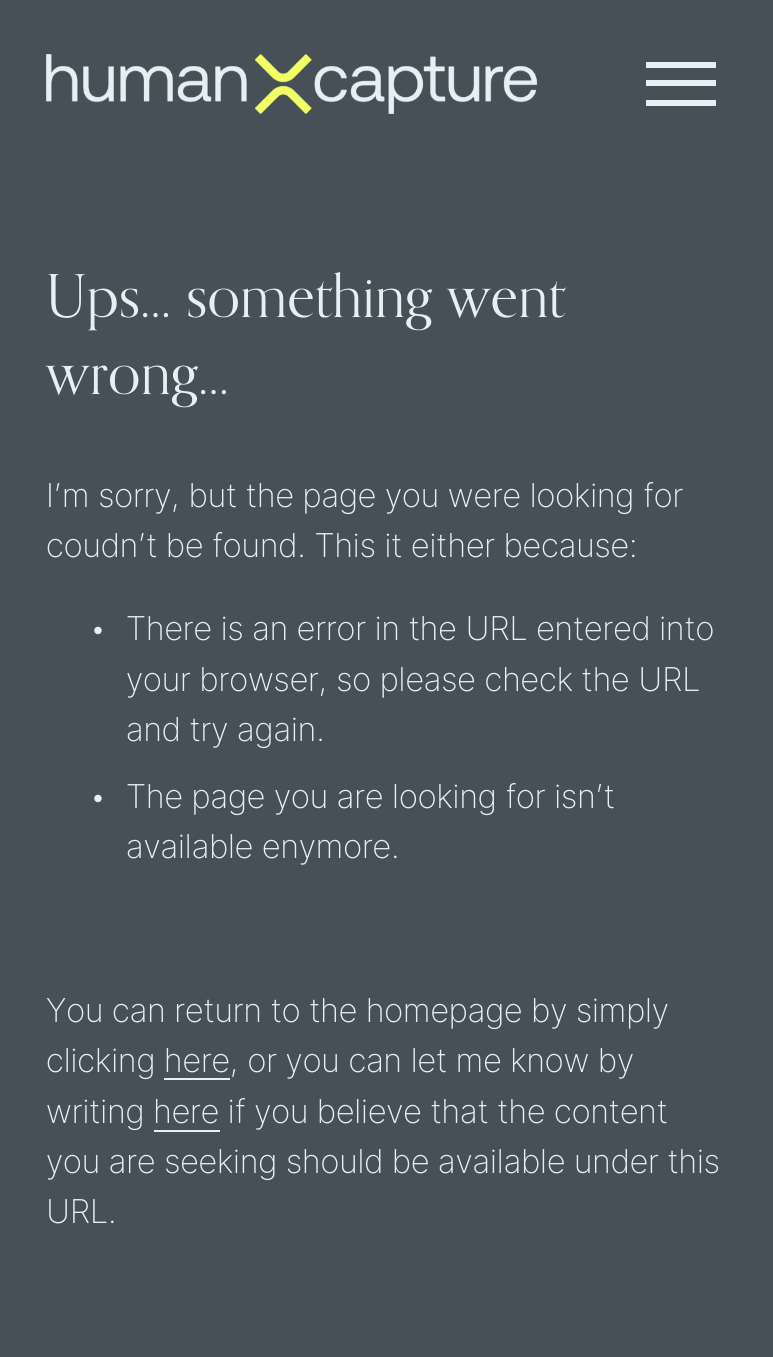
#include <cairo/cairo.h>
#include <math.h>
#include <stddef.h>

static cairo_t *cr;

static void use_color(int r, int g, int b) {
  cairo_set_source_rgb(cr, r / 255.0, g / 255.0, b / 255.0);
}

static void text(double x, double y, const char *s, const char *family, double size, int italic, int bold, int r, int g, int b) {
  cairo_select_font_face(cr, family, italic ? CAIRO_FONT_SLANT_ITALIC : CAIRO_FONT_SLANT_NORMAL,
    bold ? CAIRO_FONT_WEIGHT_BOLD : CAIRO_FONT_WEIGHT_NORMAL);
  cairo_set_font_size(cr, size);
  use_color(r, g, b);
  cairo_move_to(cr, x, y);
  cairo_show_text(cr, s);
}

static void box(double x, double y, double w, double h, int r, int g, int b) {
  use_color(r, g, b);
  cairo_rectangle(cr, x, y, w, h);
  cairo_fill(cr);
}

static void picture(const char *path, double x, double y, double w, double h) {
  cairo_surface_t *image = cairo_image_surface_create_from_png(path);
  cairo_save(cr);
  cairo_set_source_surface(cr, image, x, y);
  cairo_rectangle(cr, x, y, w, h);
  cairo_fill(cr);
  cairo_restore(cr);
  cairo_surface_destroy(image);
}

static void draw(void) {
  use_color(71, 79, 87);
  cairo_paint(cr);
  picture("img_01.png", 46, 54, 492, 60);
  box(646, 62, 70, 6, 229, 240, 242);
  box(646, 80, 70, 6, 229, 240, 242);
  box(646, 100, 70, 6, 229, 240, 242);
  box(164, 1078, 66, 2, 229, 240, 242);
  box(154, 1130, 66, 2, 229, 240, 242);
  text(46, 317, "Ups… something went", "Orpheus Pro", 59.25, 0, 0, 229, 240, 242);
  text(46, 394, "wrong…", "Orpheus Pro", 59.25, 0, 0, 229, 240, 242);
  text(46, 507, "I’m sorry, but the page you were looking for", "Inter Tight ExtraLight", 32.9, 0, 0, 229, 240, 242);
  text(46, 557, "coudn’t be found. This it either because:", "Inter Tight ExtraLight", 32.9, 0, 0, 229, 240, 242);
  text(89, 640, "•", "Inter Tight ExtraLight", 32.9, 0, 0, 229, 240, 242);
  text(126, 640, "There is an error in the URL entered into", "Inter Tight ExtraLight", 32.9, 0, 0, 229, 240, 242);
  text(126, 691, "your browser, so please check the URL", "Inter Tight ExtraLight", 32.9, 0, 0, 229, 240, 242);
  text(126, 741, "and try again.", "Inter Tight ExtraLight", 32.9, 0, 0, 229, 240, 242);
  text(89, 808, "•", "Inter Tight ExtraLight", 32.9, 0, 0, 229, 240, 242);
  text(126, 808, "The page you are looking for isn’t", "Inter Tight ExtraLight", 32.9, 0, 0, 229, 240, 242);
  text(126, 858, "available enymore.", "Inter Tight ExtraLight", 32.9, 0, 0, 229, 240, 242);
  text(46, 1022, "You can return to the homepage by simply", "Inter Tight ExtraLight", 32.9, 0, 0, 229, 240, 242);
  text(46, 1072, "clicking here, or you can let me know by", "Inter Tight ExtraLight", 32.9, 0, 0, 229, 240, 242);
  text(46, 1123, "writing here if you believe that the content", "Inter Tight ExtraLight", 32.9, 0, 0, 229, 240, 242);
  text(46, 1173, "you are seeking should be available under this", "Inter Tight ExtraLight", 32.9, 0, 0, 229, 240, 242);
  text(46, 1223, "URL.", "Inter Tight ExtraLight", 32.9, 0, 0, 229, 240, 242);
}

int main(void) {
  cairo_surface_t *surface = cairo_image_surface_create(CAIRO_FORMAT_RGB24, 773, 1357);
  cr = cairo_create(surface);
  cairo_font_options_t *options = cairo_font_options_create();
  cairo_font_options_set_hint_metrics(options, CAIRO_HINT_METRICS_OFF);
  cairo_font_options_set_hint_style(options, CAIRO_HINT_STYLE_NONE);
  cairo_set_font_options(cr, options);
  cairo_set_miter_limit(cr, 4);
  draw();
  cairo_surface_write_to_png(surface, "out.png");
  cairo_font_options_destroy(options);
  cairo_destroy(cr);
  cairo_surface_destroy(surface);
  return 0;
}
